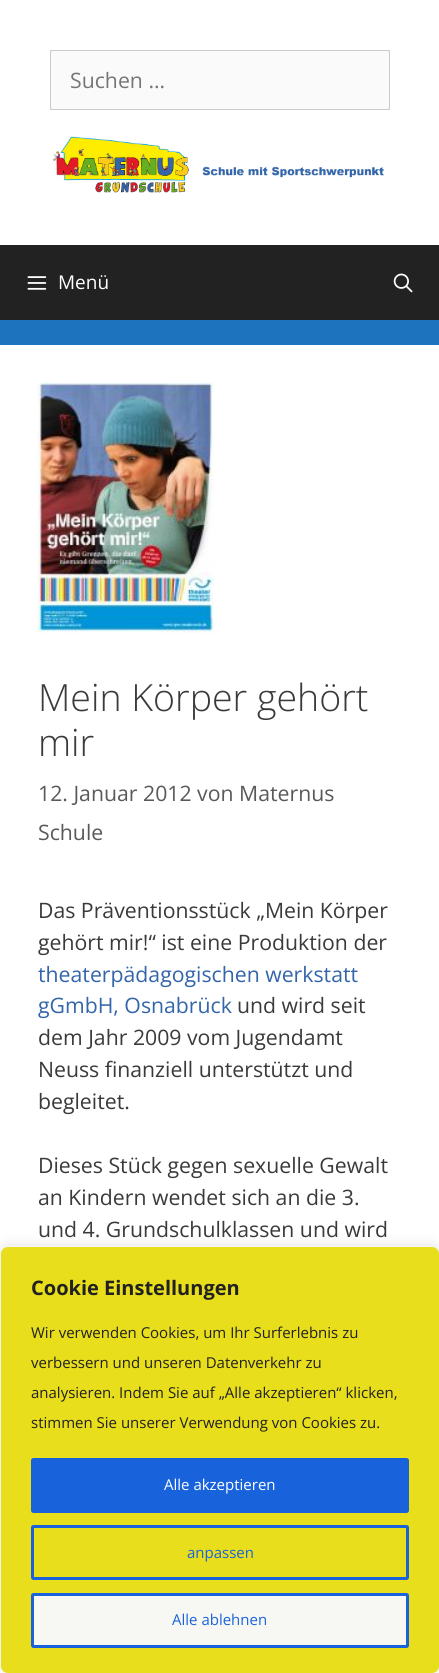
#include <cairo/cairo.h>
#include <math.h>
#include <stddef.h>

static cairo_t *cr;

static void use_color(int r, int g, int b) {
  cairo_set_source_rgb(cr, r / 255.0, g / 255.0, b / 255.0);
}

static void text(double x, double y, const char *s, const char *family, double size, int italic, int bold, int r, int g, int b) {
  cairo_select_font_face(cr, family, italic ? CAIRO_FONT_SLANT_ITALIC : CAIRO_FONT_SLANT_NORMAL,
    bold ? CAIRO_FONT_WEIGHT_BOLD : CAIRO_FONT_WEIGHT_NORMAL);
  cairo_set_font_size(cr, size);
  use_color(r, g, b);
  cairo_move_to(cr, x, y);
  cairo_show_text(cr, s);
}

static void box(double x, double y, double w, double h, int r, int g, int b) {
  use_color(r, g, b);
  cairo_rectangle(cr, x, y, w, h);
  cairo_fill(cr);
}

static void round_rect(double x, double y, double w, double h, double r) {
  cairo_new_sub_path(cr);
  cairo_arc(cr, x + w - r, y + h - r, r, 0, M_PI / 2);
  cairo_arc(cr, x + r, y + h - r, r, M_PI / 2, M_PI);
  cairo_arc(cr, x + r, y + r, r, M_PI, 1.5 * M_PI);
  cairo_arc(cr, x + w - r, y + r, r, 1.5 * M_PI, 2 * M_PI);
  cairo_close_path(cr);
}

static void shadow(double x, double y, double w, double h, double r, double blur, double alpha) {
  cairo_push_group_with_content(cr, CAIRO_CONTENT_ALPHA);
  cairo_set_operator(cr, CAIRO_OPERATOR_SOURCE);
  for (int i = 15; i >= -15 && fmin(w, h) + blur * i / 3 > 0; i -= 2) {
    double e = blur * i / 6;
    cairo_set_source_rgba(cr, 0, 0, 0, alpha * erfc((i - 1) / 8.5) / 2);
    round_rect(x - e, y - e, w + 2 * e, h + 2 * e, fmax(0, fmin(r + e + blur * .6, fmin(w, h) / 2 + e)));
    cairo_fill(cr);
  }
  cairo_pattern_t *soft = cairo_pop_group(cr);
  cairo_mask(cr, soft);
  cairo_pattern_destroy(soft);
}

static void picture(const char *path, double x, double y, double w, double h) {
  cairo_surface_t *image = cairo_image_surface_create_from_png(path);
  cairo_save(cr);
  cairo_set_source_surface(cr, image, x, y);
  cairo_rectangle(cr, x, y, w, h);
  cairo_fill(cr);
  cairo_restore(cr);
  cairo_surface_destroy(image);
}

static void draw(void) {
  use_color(30, 115, 190);
  cairo_paint(cr);
  box(0, 0, 439, 245, 255, 255, 255);
  use_color(250, 250, 250);
  cairo_rectangle(cr, 50.5, 50.5, 339, 59);
  cairo_fill_preserve(cr);
  use_color(204, 204, 204);
  cairo_set_line_width(cr, 1);
  cairo_stroke(cr);
  picture("img_01.png", 52, 136, 332, 57);
  box(0, 245, 439, 75, 34, 34, 34);
  picture("img_02.png", 27, 276, 20, 14);
  picture("img_03.png", 393, 273, 20, 20);
  box(0, 345, 439, 1328, 255, 255, 255);
  picture("img_04.png", 37, 382, 177, 251);
  use_color(172, 171, 171);
  shadow(0, 1245, 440, 428, 8, 6, 0.3);
  use_color(232, 222, 28);
  round_rect(0.5, 1246.5, 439, 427, 7.5);
  cairo_fill_preserve(cr);
  use_color(244, 244, 244);
  cairo_stroke(cr);
  use_color(24, 99, 220);
  round_rect(32.5, 1459.5, 375, 52, 1);
  cairo_fill_preserve(cr);
  cairo_set_line_width(cr, 3);
  cairo_stroke(cr);
  round_rect(32.5, 1526.5, 375, 52, 1);
  cairo_stroke(cr);
  use_color(247, 247, 243);
  round_rect(32.5, 1594.5, 375, 52, 1);
  cairo_fill_preserve(cr);
  use_color(24, 99, 220);
  cairo_stroke(cr);
  text(70, 88, "Suchen …", "Open Sans", 21.25, 0, 0, 117, 117, 117);
  text(58, 289, "Menü", "Open Sans", 19, 0, 0, 255, 255, 255);
  text(38, 711, "Mein Körper gehört", "Open Sans Light", 37.5, 0, 0, 58, 58, 58);
  text(38, 756, "mir", "Open Sans Light", 37.5, 0, 0, 58, 58, 58);
  text(38, 801, "12. Januar 2012 von Maternus", "Open Sans", 21.25, 0, 0, 89, 89, 89);
  text(38, 840, "Schule", "Open Sans", 21.25, 0, 0, 89, 89, 89);
  text(38, 918, "Das Präventionsstück „Mein Körper", "Open Sans", 21.25, 0, 0, 58, 58, 58);
  text(38, 950, "gehört mir!“ ist eine Produktion der", "Open Sans", 21.25, 0, 0, 58, 58, 58);
  text(38, 982, "theaterpädagogischen werkstatt", "Open Sans", 21.25, 0, 0, 51, 101, 169);
  text(38, 1013, "gGmbH, Osnabrück", "Open Sans", 21.25, 0, 0, 51, 101, 169);
  text(237, 1013, "und wird seit", "Open Sans", 21.25, 0, 0, 58, 58, 58);
  text(38, 1045, "dem Jahr 2009 vom Jugendamt", "Open Sans", 21.25, 0, 0, 58, 58, 58);
  text(38, 1077, "Neuss finanziell unterstützt und", "Open Sans", 21.25, 0, 0, 58, 58, 58);
  text(38, 1109, "begleitet.", "Open Sans", 21.25, 0, 0, 58, 58, 58);
  text(38, 1173, "Dieses Stück gegen sexuelle Gewalt", "Open Sans", 21.25, 0, 0, 58, 58, 58);
  text(38, 1205, "an Kindern wendet sich an die 3.", "Open Sans", 21.25, 0, 0, 58, 58, 58);
  text(38, 1237, "und 4. Grundschulklassen und wird", "Open Sans", 21.25, 0, 0, 58, 58, 58);
  text(31, 1295, "Cookie Einstellungen", "Open Sans", 20, 0, 1, 33, 33, 33);
  text(31, 1338, "Wir verwenden Cookies, um Ihr Surferlebnis zu", "Open Sans", 15, 0, 0, 33, 33, 33);
  text(31, 1368, "verbessern und unseren Datenverkehr zu", "Open Sans", 15, 0, 0, 33, 33, 33);
  text(31, 1398, "analysieren. Indem Sie auf „Alle akzeptieren“ klicken,", "Open Sans", 15, 0, 0, 33, 33, 33);
  text(31, 1428, "stimmen Sie unserer Verwendung von Cookies zu.", "Open Sans", 15, 0, 0, 33, 33, 33);
  text(164, 1490, "Alle akzeptieren", "Open Sans", 15, 0, 0, 255, 255, 255);
  text(187, 1558, "anpassen", "Open Sans", 15, 0, 0, 24, 99, 220);
  text(172, 1625, "Alle ablehnen", "Open Sans", 15, 0, 0, 24, 99, 220);
}

int main(void) {
  cairo_surface_t *surface = cairo_image_surface_create(CAIRO_FORMAT_RGB24, 439, 1673);
  cr = cairo_create(surface);
  cairo_font_options_t *options = cairo_font_options_create();
  cairo_font_options_set_hint_metrics(options, CAIRO_HINT_METRICS_OFF);
  cairo_font_options_set_hint_style(options, CAIRO_HINT_STYLE_NONE);
  cairo_set_font_options(cr, options);
  cairo_set_miter_limit(cr, 4);
  draw();
  cairo_surface_write_to_png(surface, "out.png");
  cairo_font_options_destroy(options);
  cairo_destroy(cr);
  cairo_surface_destroy(surface);
  return 0;
}
